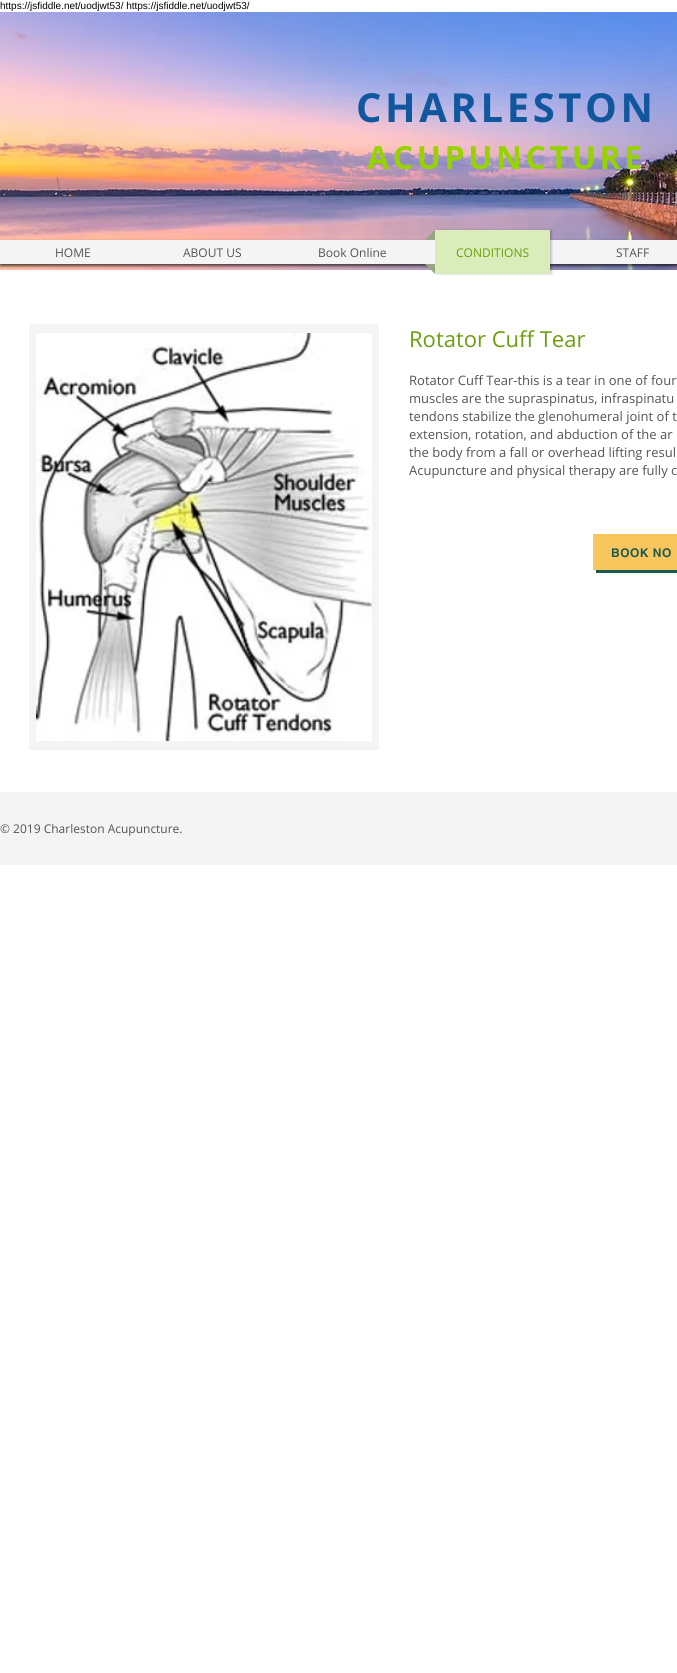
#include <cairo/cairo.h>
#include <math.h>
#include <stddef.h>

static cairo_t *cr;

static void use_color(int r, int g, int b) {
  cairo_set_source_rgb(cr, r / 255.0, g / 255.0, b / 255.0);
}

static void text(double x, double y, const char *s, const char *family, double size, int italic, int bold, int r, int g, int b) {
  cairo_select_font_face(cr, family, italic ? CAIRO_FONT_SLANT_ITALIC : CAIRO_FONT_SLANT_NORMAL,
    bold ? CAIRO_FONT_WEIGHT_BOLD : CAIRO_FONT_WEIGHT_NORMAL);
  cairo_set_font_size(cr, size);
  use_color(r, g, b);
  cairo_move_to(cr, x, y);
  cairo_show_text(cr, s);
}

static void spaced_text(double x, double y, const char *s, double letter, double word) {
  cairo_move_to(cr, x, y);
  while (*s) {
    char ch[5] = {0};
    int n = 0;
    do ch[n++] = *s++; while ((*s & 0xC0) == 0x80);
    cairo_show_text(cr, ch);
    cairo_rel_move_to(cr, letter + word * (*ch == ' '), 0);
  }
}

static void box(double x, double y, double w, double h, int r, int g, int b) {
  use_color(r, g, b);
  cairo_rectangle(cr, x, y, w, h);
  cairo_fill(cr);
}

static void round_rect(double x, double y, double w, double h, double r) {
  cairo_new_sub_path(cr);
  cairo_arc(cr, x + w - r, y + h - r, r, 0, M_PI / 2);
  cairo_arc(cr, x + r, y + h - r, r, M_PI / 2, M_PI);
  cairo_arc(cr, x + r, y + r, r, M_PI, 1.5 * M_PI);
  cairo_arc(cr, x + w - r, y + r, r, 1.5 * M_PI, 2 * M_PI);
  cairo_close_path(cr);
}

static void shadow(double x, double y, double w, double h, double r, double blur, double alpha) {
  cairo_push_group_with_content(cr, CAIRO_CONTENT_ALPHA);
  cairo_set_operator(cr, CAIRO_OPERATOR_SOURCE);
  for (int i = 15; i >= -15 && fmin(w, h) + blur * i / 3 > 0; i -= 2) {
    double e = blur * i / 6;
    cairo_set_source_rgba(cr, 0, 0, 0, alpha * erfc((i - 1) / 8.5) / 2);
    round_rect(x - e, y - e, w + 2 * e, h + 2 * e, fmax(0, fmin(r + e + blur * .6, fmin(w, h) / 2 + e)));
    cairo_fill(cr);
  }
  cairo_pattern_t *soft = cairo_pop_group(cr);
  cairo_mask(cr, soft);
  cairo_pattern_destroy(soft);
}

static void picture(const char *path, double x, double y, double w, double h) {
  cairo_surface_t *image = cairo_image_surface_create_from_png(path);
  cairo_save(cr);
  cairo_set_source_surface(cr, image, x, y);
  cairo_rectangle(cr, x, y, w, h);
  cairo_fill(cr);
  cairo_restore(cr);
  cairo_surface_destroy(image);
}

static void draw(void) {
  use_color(255, 255, 255);
  cairo_paint(cr);
  picture("img_01.png", 0, 12, 677, 258);
  use_color(0, 0, 0);
  shadow(0, 242, 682, 24, 0, 1.5, 0.7);
  box(0, 240, 677, 24, 244, 244, 244);
  use_color(0, 0, 0);
  shadow(437, 230, 115, 44, 0, 1, 0.2);
  use_color(152, 165, 130);
  cairo_new_path(cr);
  cairo_move_to(cr, 435, 240);
  cairo_line_to(cr, 425, 240);
  cairo_line_to(cr, 435, 230);
  cairo_close_path(cr);
  cairo_move_to(cr, 425, 264);
  cairo_line_to(cr, 435, 264);
  cairo_line_to(cr, 435, 274);
  cairo_close_path(cr);
  cairo_fill(cr);
  box(435, 230, 115, 44, 217, 236, 185);
  box(29, 324, 350, 426, 244, 244, 244);
  picture("img_02.png", 36, 333, 336, 408);
  use_color(25, 91, 82);
  cairo_new_path(cr);
  cairo_move_to(cr, 596, 570);
  cairo_line_to(cr, 596, 573);
  cairo_line_to(cr, 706, 573);
  cairo_line_to(cr, 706, 537);
  cairo_line_to(cr, 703, 537);
  cairo_line_to(cr, 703, 570);
  cairo_close_path(cr);
  cairo_fill(cr);
  box(593, 534, 84, 36, 249, 198, 93);
  box(0, 792, 677, 73, 244, 244, 244);
  text(0, 9, "https://jsfiddle.net/uodjwt53/ https://jsfiddle.net/uodjwt53/", "Liberation Sans", 10, 0, 0, 0, 0, 0);
  box(11, 11, 213, 1, 255, 255, 255);
  cairo_select_font_face(cr, "Open Sans", CAIRO_FONT_SLANT_NORMAL, CAIRO_FONT_WEIGHT_BOLD);
  cairo_set_font_size(cr, 40);
  use_color(17, 87, 158);
  spaced_text(356, 122, "CHARLESTON", 3.6, 0);
  cairo_set_font_size(cr, 32);
  use_color(150, 211, 0);
  spaced_text(367, 169, "ACUPUNCTURE", 3.6, 0);
  text(55, 257, "HOME", "Open Sans", 12, 0, 0, 84, 84, 84);
  text(183, 257, "ABOUT US", "Open Sans", 12, 0, 0, 84, 84, 84);
  text(318, 257, "Book Online", "Open Sans", 12, 0, 0, 84, 84, 84);
  text(456, 257, "CONDITIONS", "Open Sans", 12, 0, 0, 109, 158, 17);
  text(616, 257, "STAFF", "Open Sans", 12, 0, 0, 84, 84, 84);
  text(409, 347, "Rotator Cuff Tear", "Open Sans", 22, 0, 0, 109, 158, 17);
  text(409, 385, "Rotator Cuff Tear-this is a tear in one of four", "Open Sans", 13, 0, 0, 84, 84, 84);
  text(409, 403, "muscles are the supraspinatus, infraspinatu", "Open Sans", 13, 0, 0, 84, 84, 84);
  text(409, 421, "tendons stabilize the glenohumeral joint of t", "Open Sans", 13, 0, 0, 84, 84, 84);
  text(409, 439, "extension, rotation, and abduction of the ar", "Open Sans", 13, 0, 0, 84, 84, 84);
  text(409, 457, "the body from a fall or overhead lifting resul", "Open Sans", 13, 0, 0, 84, 84, 84);
  text(409, 475, "Acupuncture and physical therapy are fully c", "Open Sans", 13, 0, 0, 84, 84, 84);
  cairo_select_font_face(cr, "helvetica", CAIRO_FONT_SLANT_NORMAL, CAIRO_FONT_WEIGHT_BOLD);
  cairo_set_font_size(cr, 12);
  use_color(25, 91, 82);
  spaced_text(611, 557, "BOOK NO", 0.5, 0);
  text(0, 833, "© 2019 Charleston Acupuncture.", "Open Sans", 12, 0, 0, 84, 84, 84);
}

int main(void) {
  cairo_surface_t *surface = cairo_image_surface_create(CAIRO_FORMAT_RGB24, 677, 1673);
  cr = cairo_create(surface);
  cairo_font_options_t *options = cairo_font_options_create();
  cairo_font_options_set_hint_metrics(options, CAIRO_HINT_METRICS_OFF);
  cairo_font_options_set_hint_style(options, CAIRO_HINT_STYLE_NONE);
  cairo_set_font_options(cr, options);
  cairo_set_miter_limit(cr, 4);
  draw();
  cairo_surface_write_to_png(surface, "out.png");
  cairo_font_options_destroy(options);
  cairo_destroy(cr);
  cairo_surface_destroy(surface);
  return 0;
}
